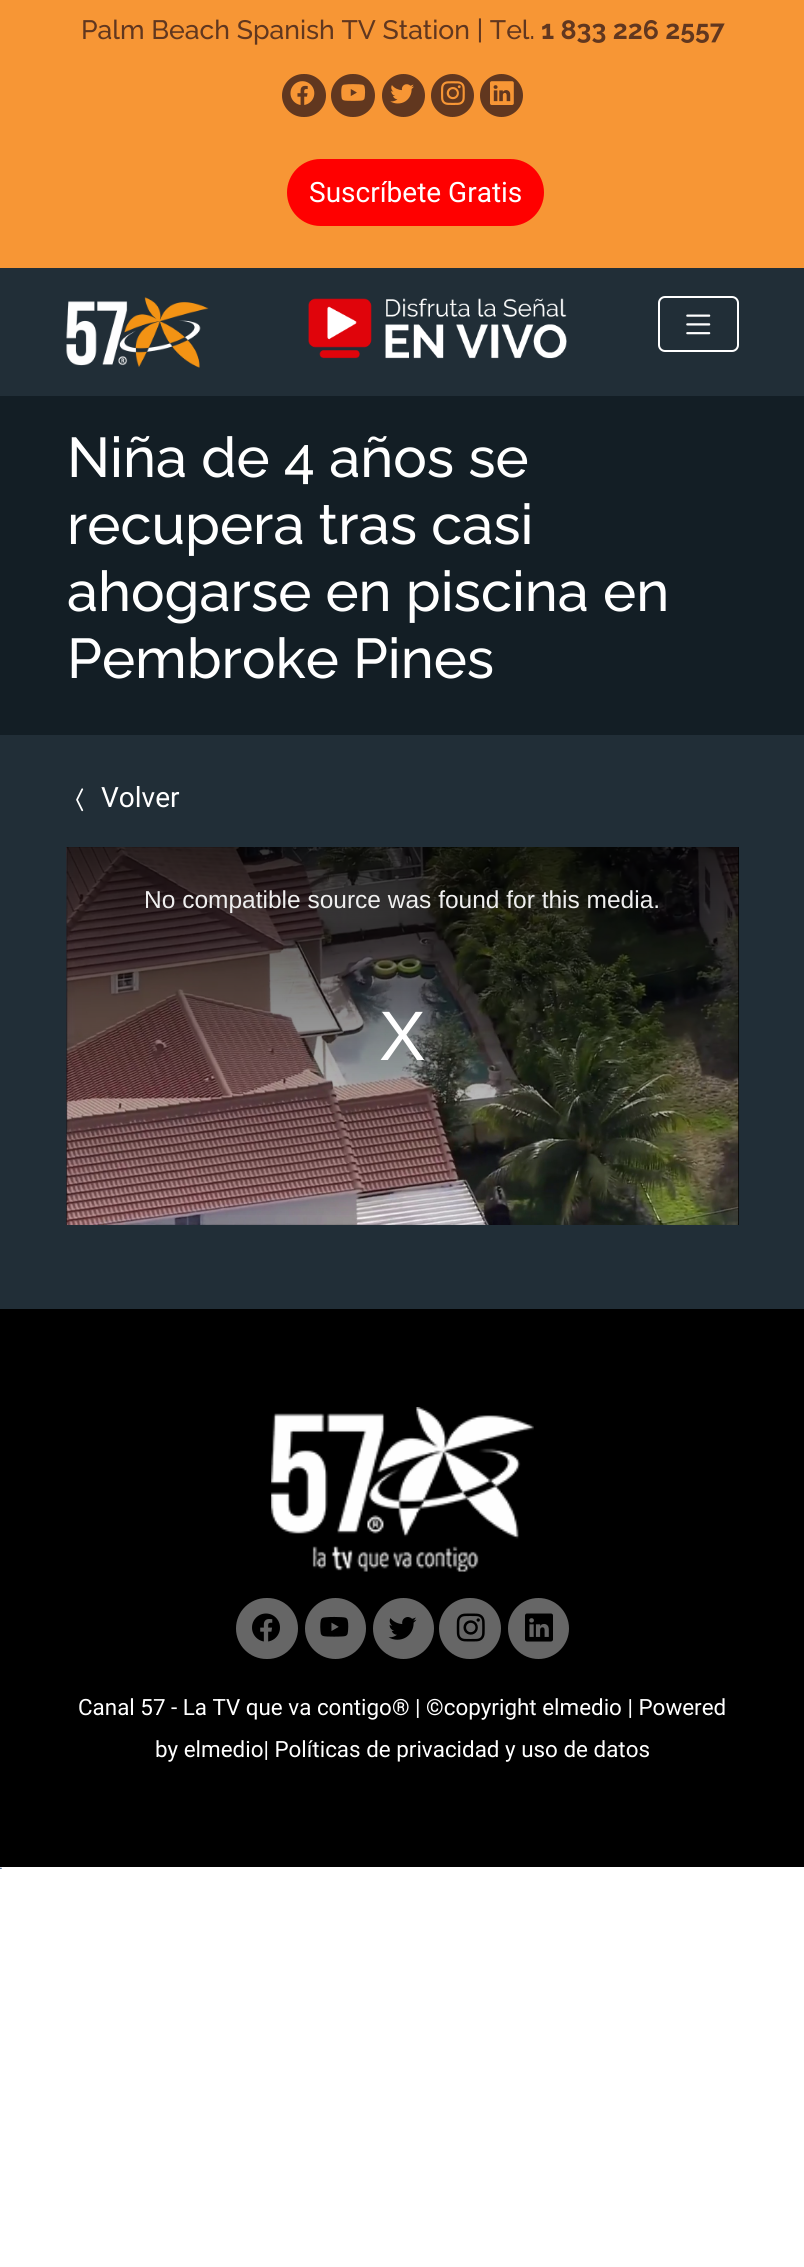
#include <cairo/cairo.h>
#include <math.h>
#include <stddef.h>

static cairo_t *cr;

static void use_color(int r, int g, int b) {
  cairo_set_source_rgb(cr, r / 255.0, g / 255.0, b / 255.0);
}

static void text(double x, double y, const char *s, const char *family, double size, int italic, int bold, int r, int g, int b) {
  cairo_select_font_face(cr, family, italic ? CAIRO_FONT_SLANT_ITALIC : CAIRO_FONT_SLANT_NORMAL,
    bold ? CAIRO_FONT_WEIGHT_BOLD : CAIRO_FONT_WEIGHT_NORMAL);
  cairo_set_font_size(cr, size);
  use_color(r, g, b);
  cairo_move_to(cr, x, y);
  cairo_show_text(cr, s);
}

static void box(double x, double y, double w, double h, int r, int g, int b) {
  use_color(r, g, b);
  cairo_rectangle(cr, x, y, w, h);
  cairo_fill(cr);
}

static void round_rect(double x, double y, double w, double h, double r) {
  cairo_new_sub_path(cr);
  cairo_arc(cr, x + w - r, y + h - r, r, 0, M_PI / 2);
  cairo_arc(cr, x + r, y + h - r, r, M_PI / 2, M_PI);
  cairo_arc(cr, x + r, y + r, r, M_PI, 1.5 * M_PI);
  cairo_arc(cr, x + w - r, y + r, r, 1.5 * M_PI, 2 * M_PI);
  cairo_close_path(cr);
}

static void picture(const char *path, double x, double y, double w, double h) {
  cairo_surface_t *image = cairo_image_surface_create_from_png(path);
  cairo_save(cr);
  cairo_set_source_surface(cr, image, x, y);
  cairo_rectangle(cr, x, y, w, h);
  cairo_fill(cr);
  cairo_restore(cr);
  cairo_surface_destroy(image);
}

static void draw(void) {
  cairo_pattern_t *gradient;
  use_color(255, 255, 255);
  cairo_paint(cr);
  box(0, 268, 804, 128, 33, 46, 55);
  box(0, 0, 804, 268, 247, 150, 53);
  use_color(97, 55, 31);
  round_rect(282, 74, 44, 43, 21.5);
  cairo_fill(cr);
  picture("img_01.png", 290, 81, 25, 24);
  round_rect(331, 74, 44, 43, 21.5);
  cairo_fill(cr);
  picture("img_02.png", 341, 84, 25, 17);
  cairo_arc(cr, 403.5, 95.5, 21.5, 0, 2 * M_PI);
  cairo_fill(cr);
  picture("img_03.png", 390, 84, 24, 20);
  cairo_arc(cr, 452.5, 95.5, 21.5, 0, 2 * M_PI);
  cairo_fill(cr);
  picture("img_04.png", 441, 81, 24, 24);
  cairo_arc(cr, 501.5, 95.5, 21.5, 0, 2 * M_PI);
  cairo_fill(cr);
  picture("img_05.png", 490, 81, 24, 24);
  use_color(255, 0, 0);
  round_rect(288, 160, 255, 65, 32.5);
  cairo_fill_preserve(cr);
  cairo_stroke(cr);
  picture("img_06.png", 66, 297, 143, 71);
  picture("img_07.png", 308, 298, 259, 61);
  round_rect(659, 297, 79, 54, 6);
  use_color(255, 255, 255);
  cairo_stroke(cr);
  picture("img_08.png", 686, 314, 25, 21);
  box(0, 735, 804, 574, 33, 46, 55);
  box(0, 396, 804, 339, 19, 30, 37);
  picture("img_09.png", 76, 788, 8, 24);
  picture("img_10.png", 66, 847, 1, 378);
  box(738, 847, 1, 378, 0, 0, 0);
  picture("img_11.png", 66, 847, 673, 378);
  gradient = cairo_pattern_create_linear(403, 847, 403, 1225);
  cairo_pattern_add_color_stop_rgba(gradient, 0, 0, 0, 0, 0.8);
  cairo_pattern_add_color_stop_rgba(gradient, 1, 0, 0, 0, 0);
  cairo_set_source(cr, gradient);
  cairo_pattern_destroy(gradient);
  cairo_rectangle(cr, 67, 847, 672, 368);
  cairo_fill(cr);
  box(0, 1309, 804, 558, 0, 0, 0);
  picture("img_12.png", 271, 1407, 263, 165);
  use_color(102, 102, 102);
  round_rect(236, 1598, 62, 61, 30.5);
  cairo_fill(cr);
  picture("img_13.png", 252, 1613, 28, 29);
  cairo_arc(cr, 335.5, 1628.5, 30.5, 0, 2 * M_PI);
  cairo_fill(cr);
  picture("img_14.png", 320, 1616, 29, 21);
  cairo_arc(cr, 403.5, 1628.5, 30.5, 0, 2 * M_PI);
  cairo_fill(cr);
  picture("img_15.png", 388, 1617, 29, 23);
  round_rect(439, 1598, 62, 61, 30.5);
  cairo_fill(cr);
  picture("img_16.png", 456, 1613, 29, 29);
  cairo_arc(cr, 538.5, 1628.5, 30.5, 0, 2 * M_PI);
  cairo_fill(cr);
  picture("img_17.png", 525, 1613, 28, 29);
  picture("img_18.png", 0, 1867, 2, 2);
  text(81, 39, "Palm Beach Spanish TV Station | Tel.", "Raleway Medium", 26.6, 0, 0, 97, 55, 31);
  text(541, 39, "1 833 226 2557", "Raleway", 26.6, 0, 1, 97, 55, 31);
  text(309, 202, "Suscríbete Gratis", "Roboto", 28, 0, 0, 255, 255, 255);
  text(67, 477, "Niña de 4 años se", "Raleway Medium", 56, 0, 0, 255, 255, 255);
  text(67, 544, "recupera tras casi", "Raleway Medium", 56, 0, 0, 255, 255, 255);
  text(67, 611, "ahogarse en piscina en", "Raleway Medium", 56, 0, 0, 255, 255, 255);
  text(67, 678, "Pembroke Pines", "Raleway Medium", 56, 0, 0, 255, 255, 255);
  text(101, 807, "Volver", "Roboto", 28, 0, 0, 255, 255, 255);
  text(144, 908, "No compatible source was found for this media.", "Liberation Sans", 24.5, 0, 0, 239, 239, 239);
  text(379, 1060, "X", "Liberation Sans", 70, 0, 0, 255, 255, 255);
  text(78, 1715, "Canal 57 - La TV que va contigo® | ©copyright elmedio | Powered", "Roboto", 22.4, 0, 0, 255, 255, 255);
  text(155, 1757, "by elmedio| Políticas de privacidad y uso de datos", "Roboto", 22.4, 0, 0, 255, 255, 255);
}

int main(void) {
  cairo_surface_t *surface = cairo_image_surface_create(CAIRO_FORMAT_RGB24, 804, 2267);
  cr = cairo_create(surface);
  cairo_font_options_t *options = cairo_font_options_create();
  cairo_font_options_set_hint_metrics(options, CAIRO_HINT_METRICS_OFF);
  cairo_font_options_set_hint_style(options, CAIRO_HINT_STYLE_NONE);
  cairo_set_font_options(cr, options);
  cairo_set_miter_limit(cr, 4);
  draw();
  cairo_surface_write_to_png(surface, "out.png");
  cairo_font_options_destroy(options);
  cairo_destroy(cr);
  cairo_surface_destroy(surface);
  return 0;
}
